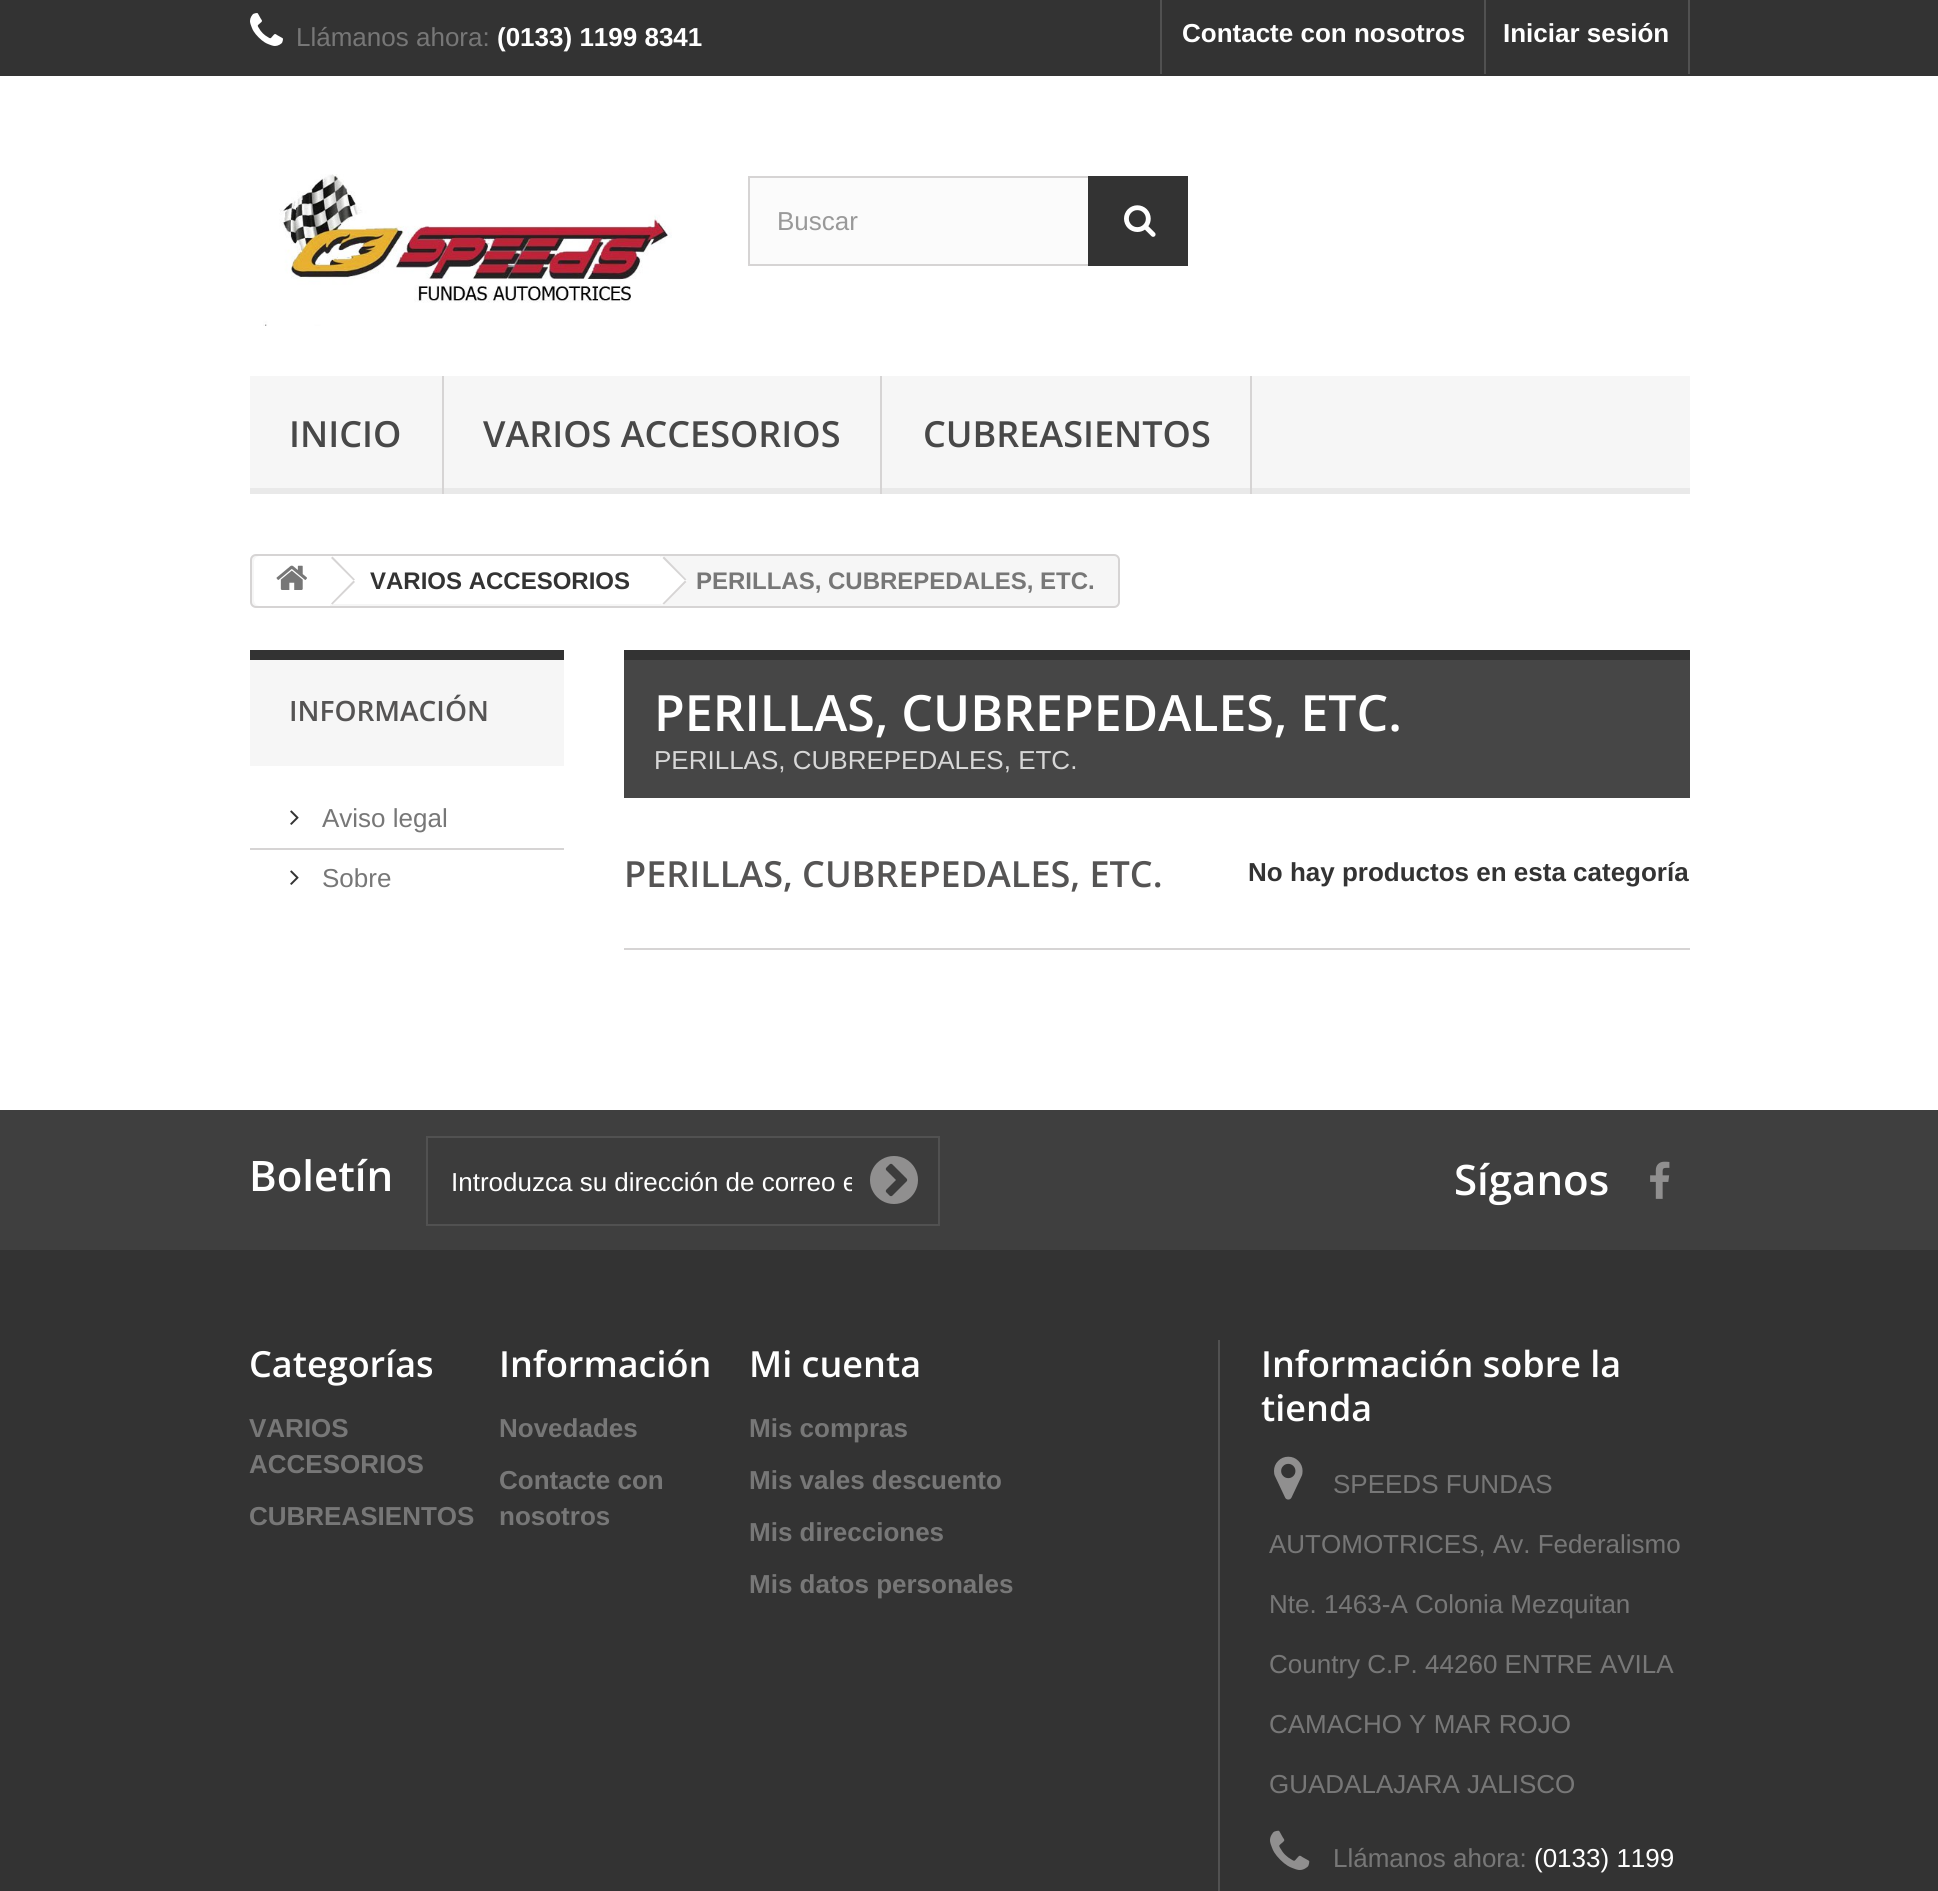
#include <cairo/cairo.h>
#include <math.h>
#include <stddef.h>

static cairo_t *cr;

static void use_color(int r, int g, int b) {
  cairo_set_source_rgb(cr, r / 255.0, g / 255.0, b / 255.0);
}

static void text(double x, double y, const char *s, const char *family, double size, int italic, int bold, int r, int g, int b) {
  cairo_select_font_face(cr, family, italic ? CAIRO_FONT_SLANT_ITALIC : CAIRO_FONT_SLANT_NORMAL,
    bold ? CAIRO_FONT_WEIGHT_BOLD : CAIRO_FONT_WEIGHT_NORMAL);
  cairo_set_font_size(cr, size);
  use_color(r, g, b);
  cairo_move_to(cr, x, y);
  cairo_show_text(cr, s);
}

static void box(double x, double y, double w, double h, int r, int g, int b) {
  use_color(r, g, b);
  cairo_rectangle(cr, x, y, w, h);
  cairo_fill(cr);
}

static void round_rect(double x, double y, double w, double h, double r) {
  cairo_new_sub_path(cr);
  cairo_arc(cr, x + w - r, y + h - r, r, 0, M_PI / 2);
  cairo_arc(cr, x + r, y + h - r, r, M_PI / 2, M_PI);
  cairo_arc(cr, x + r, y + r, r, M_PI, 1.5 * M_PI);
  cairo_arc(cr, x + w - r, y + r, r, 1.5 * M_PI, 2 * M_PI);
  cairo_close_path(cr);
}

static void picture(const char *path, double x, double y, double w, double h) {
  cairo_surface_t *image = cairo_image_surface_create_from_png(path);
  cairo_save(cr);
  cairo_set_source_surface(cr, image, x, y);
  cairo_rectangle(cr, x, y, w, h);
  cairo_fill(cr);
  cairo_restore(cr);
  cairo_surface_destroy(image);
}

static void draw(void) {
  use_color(255, 255, 255);
  cairo_paint(cr);
  box(0, 0, 1938, 76, 51, 51, 51);
  picture("img_01.png", 250, 13, 33, 33);
  box(1160, 0, 2, 74, 81, 81, 81);
  box(1688, 0, 2, 74, 81, 81, 81);
  box(1484, 0, 2, 74, 81, 81, 81);
  picture("img_02.png", 263, 174, 409, 152);
  box(750, 178, 338, 86, 251, 251, 251);
  cairo_rectangle(cr, 749, 177, 438, 88);
  use_color(214, 212, 212);
  cairo_stroke(cr);
  box(1088, 176, 100, 90, 51, 51, 51);
  picture("img_03.png", 1124, 205, 32, 32);
  box(250, 376, 1440, 112, 246, 246, 246);
  box(250, 488, 1440, 6, 233, 233, 233);
  box(442, 376, 2, 118, 214, 212, 212);
  box(880, 376, 2, 118, 214, 212, 212);
  box(1250, 376, 2, 118, 214, 212, 212);
  use_color(246, 246, 246);
  round_rect(251, 555, 868, 52, 5);
  cairo_fill_preserve(cr);
  use_color(214, 212, 212);
  cairo_stroke(cr);
  use_color(255, 255, 255);
  cairo_new_path(cr);
  cairo_move_to(cr, 260, 556);
  cairo_line_to(cr, 330, 556);
  cairo_line_to(cr, 330, 606);
  cairo_line_to(cr, 260, 606);
  cairo_curve_to(cr, 256.5, 606, 254, 603.5, 254, 600);
  cairo_line_to(cr, 254, 562);
  cairo_curve_to(cr, 254, 558.5, 256.5, 556, 260, 556);
  cairo_close_path(cr);
  cairo_fill(cr);
  picture("img_04.png", 276, 565, 31, 25);
  box(330, 556, 330, 48, 255, 255, 255);
  cairo_new_path(cr);
  cairo_move_to(cr, 334, 558);
  cairo_line_to(cr, 354, 578);
  cairo_curve_to(cr, 355, 579, 355, 582, 354, 584);
  cairo_line_to(cr, 334, 603);
  cairo_curve_to(cr, 332, 605, 330, 605, 328, 603);
  cairo_line_to(cr, 308, 584);
  cairo_curve_to(cr, 307, 582, 307, 579, 308, 578);
  cairo_line_to(cr, 328, 558);
  cairo_curve_to(cr, 330, 556, 332, 556, 334, 558);
  cairo_close_path(cr);
  cairo_fill(cr);
  use_color(214, 212, 212);
  cairo_new_path(cr);
  cairo_move_to(cr, 332.5, 556.5);
  cairo_line_to(cr, 355, 579.5);
  cairo_line_to(cr, 353.5, 580.5);
  cairo_line_to(cr, 331, 558);
  cairo_close_path(cr);
  cairo_fill(cr);
  cairo_new_path(cr);
  cairo_move_to(cr, 353.5, 580.5);
  cairo_line_to(cr, 355, 582);
  cairo_line_to(cr, 332.5, 604.5);
  cairo_line_to(cr, 331, 603.5);
  cairo_close_path(cr);
  cairo_fill(cr);
  use_color(255, 255, 255);
  cairo_new_path(cr);
  cairo_move_to(cr, 665, 558);
  cairo_line_to(cr, 685, 578);
  cairo_curve_to(cr, 687, 579, 687, 582, 685, 584);
  cairo_line_to(cr, 665, 603);
  cairo_curve_to(cr, 664, 605, 661, 605, 660, 603);
  cairo_line_to(cr, 640, 584);
  cairo_curve_to(cr, 638, 582, 638, 579, 640, 578);
  cairo_line_to(cr, 660, 558);
  cairo_curve_to(cr, 661, 556, 664, 556, 665, 558);
  cairo_close_path(cr);
  cairo_fill(cr);
  use_color(214, 212, 212);
  cairo_new_path(cr);
  cairo_move_to(cr, 664, 556.5);
  cairo_line_to(cr, 686.5, 579.5);
  cairo_line_to(cr, 685, 580.5);
  cairo_line_to(cr, 662.5, 558);
  cairo_close_path(cr);
  cairo_fill(cr);
  cairo_new_path(cr);
  cairo_move_to(cr, 685, 580.5);
  cairo_line_to(cr, 686.5, 582);
  cairo_line_to(cr, 664, 604.5);
  cairo_line_to(cr, 662.5, 603.5);
  cairo_close_path(cr);
  cairo_fill(cr);
  box(250, 660, 314, 106, 246, 246, 246);
  box(250, 650, 314, 10, 51, 51, 51);
  picture("img_05.png", 290, 810, 9, 15);
  box(250, 848, 314, 2, 214, 212, 212);
  picture("img_05.png", 290, 870, 9, 15);
  box(624, 650, 1066, 10, 51, 51, 51);
  box(624, 660, 1066, 138, 70, 70, 70);
  box(624, 948, 1066, 2, 214, 212, 212);
  box(0, 1250, 1938, 641, 51, 51, 51);
  box(0, 1110, 1938, 140, 63, 63, 63);
  use_color(60, 60, 60);
  cairo_rectangle(cr, 427, 1137, 512, 88);
  cairo_fill_preserve(cr);
  use_color(81, 81, 81);
  cairo_stroke(cr);
  picture("img_06.png", 870, 1156, 48, 48);
  picture("img_07.png", 1650, 1161, 20, 38);
  box(1218, 1340, 2, 551, 81, 81, 81);
  picture("img_08.png", 1274, 1456, 29, 44);
  picture("img_09.png", 1270, 1830, 40, 40);
  text(296, 46, "Llámanos ahora:", "Liberation Sans", 26, 0, 0, 119, 119, 119);
  text(497, 46, "(0133) 1199 8341", "Liberation Sans", 26, 0, 1, 255, 255, 255);
  text(1182, 42, "Contacte con nosotros", "Liberation Sans", 26, 0, 1, 255, 255, 255);
  text(1503, 42, "Iniciar sesión", "Liberation Sans", 26, 0, 1, 255, 255, 255);
  text(777, 230, "Buscar", "Liberation Sans", 26, 0, 0, 153, 153, 153);
  text(289, 447, "INICIO", "Open Sans SemiBold", 36, 0, 0, 72, 72, 72);
  text(483, 447, "VARIOS ACCESORIOS", "Open Sans SemiBold", 36, 0, 0, 72, 72, 72);
  text(923, 447, "CUBREASIENTOS", "Open Sans SemiBold", 36, 0, 0, 72, 72, 72);
  text(370, 589, "VARIOS ACCESORIOS", "Liberation Sans", 24, 0, 1, 51, 51, 51);
  text(696, 589, "PERILLAS, CUBREPEDALES, ETC.", "Liberation Sans", 24, 0, 1, 119, 119, 119);
  text(289, 721, "INFORMACIÓN", "Open Sans SemiBold", 28, 0, 0, 85, 84, 84);
  text(322, 827, "Aviso legal", "Liberation Sans", 26, 0, 0, 119, 119, 119);
  text(322, 887, "Sobre", "Liberation Sans", 26, 0, 0, 119, 119, 119);
  text(654, 731, "PERILLAS, CUBREPEDALES, ETC.", "Open Sans SemiBold", 50, 0, 0, 255, 255, 255);
  text(654, 769, "PERILLAS, CUBREPEDALES, ETC.", "Liberation Sans", 26, 0, 0, 215, 215, 215);
  text(624, 887, "PERILLAS, CUBREPEDALES, ETC.", "Open Sans SemiBold", 36, 0, 0, 85, 84, 84);
  text(1248, 881, "No hay productos en esta categoría", "Liberation Sans", 26, 0, 1, 51, 51, 51);
  text(249, 1191, "Boletín", "Open Sans SemiBold", 42, 0, 0, 255, 255, 255);
  cairo_save(cr);
  cairo_rectangle(cr, 452, 1166, 400, 30);
  cairo_clip(cr);
  text(451, 1191, "Introduzca su dirección de correo e", "Liberation Sans", 26, 0, 0, 255, 255, 255);
  cairo_restore(cr);
  text(1454, 1195, "Síganos", "Open Sans SemiBold", 42, 0, 0, 255, 255, 255);
  text(249, 1377, "Categorías", "Open Sans SemiBold", 36, 0, 0, 255, 255, 255);
  text(249, 1437, "VARIOS", "Liberation Sans", 26, 0, 1, 119, 119, 119);
  text(249, 1473, "ACCESORIOS", "Liberation Sans", 26, 0, 1, 119, 119, 119);
  text(249, 1525, "CUBREASIENTOS", "Liberation Sans", 26, 0, 1, 119, 119, 119);
  text(499, 1377, "Información", "Open Sans SemiBold", 36, 0, 0, 255, 255, 255);
  text(499, 1437, "Novedades", "Liberation Sans", 26, 0, 1, 119, 119, 119);
  text(499, 1489, "Contacte con", "Liberation Sans", 26, 0, 1, 119, 119, 119);
  text(499, 1525, "nosotros", "Liberation Sans", 26, 0, 1, 119, 119, 119);
  text(749, 1377, "Mi cuenta", "Open Sans SemiBold", 36, 0, 0, 255, 255, 255);
  text(749, 1437, "Mis compras", "Liberation Sans", 26, 0, 1, 119, 119, 119);
  text(749, 1489, "Mis vales descuento", "Liberation Sans", 26, 0, 1, 119, 119, 119);
  text(749, 1541, "Mis direcciones", "Liberation Sans", 26, 0, 1, 119, 119, 119);
  text(749, 1593, "Mis datos personales", "Liberation Sans", 26, 0, 1, 119, 119, 119);
  text(1261, 1377, "Información sobre la", "Open Sans SemiBold", 36, 0, 0, 255, 255, 255);
  text(1261, 1421, "tienda", "Open Sans SemiBold", 36, 0, 0, 255, 255, 255);
  text(1333, 1493, "SPEEDS FUNDAS", "Liberation Sans", 26, 0, 0, 119, 119, 119);
  text(1269, 1553, "AUTOMOTRICES, Av. Federalismo", "Liberation Sans", 26, 0, 0, 119, 119, 119);
  text(1269, 1613, "Nte. 1463-A Colonia Mezquitan", "Liberation Sans", 26, 0, 0, 119, 119, 119);
  text(1269, 1673, "Country C.P. 44260 ENTRE AVILA", "Liberation Sans", 26, 0, 0, 119, 119, 119);
  text(1269, 1733, "CAMACHO Y MAR ROJO", "Liberation Sans", 26, 0, 0, 119, 119, 119);
  text(1269, 1793, "GUADALAJARA JALISCO", "Liberation Sans", 26, 0, 0, 119, 119, 119);
  text(1333, 1867, "Llámanos ahora:", "Liberation Sans", 26, 0, 0, 119, 119, 119);
  text(1534, 1867, "(0133) 1199", "Liberation Sans", 26, 0, 0, 255, 255, 255);
}

int main(void) {
  cairo_surface_t *surface = cairo_image_surface_create(CAIRO_FORMAT_RGB24, 1938, 1891);
  cr = cairo_create(surface);
  cairo_font_options_t *options = cairo_font_options_create();
  cairo_font_options_set_hint_metrics(options, CAIRO_HINT_METRICS_OFF);
  cairo_font_options_set_hint_style(options, CAIRO_HINT_STYLE_NONE);
  cairo_set_font_options(cr, options);
  cairo_set_miter_limit(cr, 4);
  draw();
  cairo_surface_write_to_png(surface, "out.png");
  cairo_font_options_destroy(options);
  cairo_destroy(cr);
  cairo_surface_destroy(surface);
  return 0;
}
